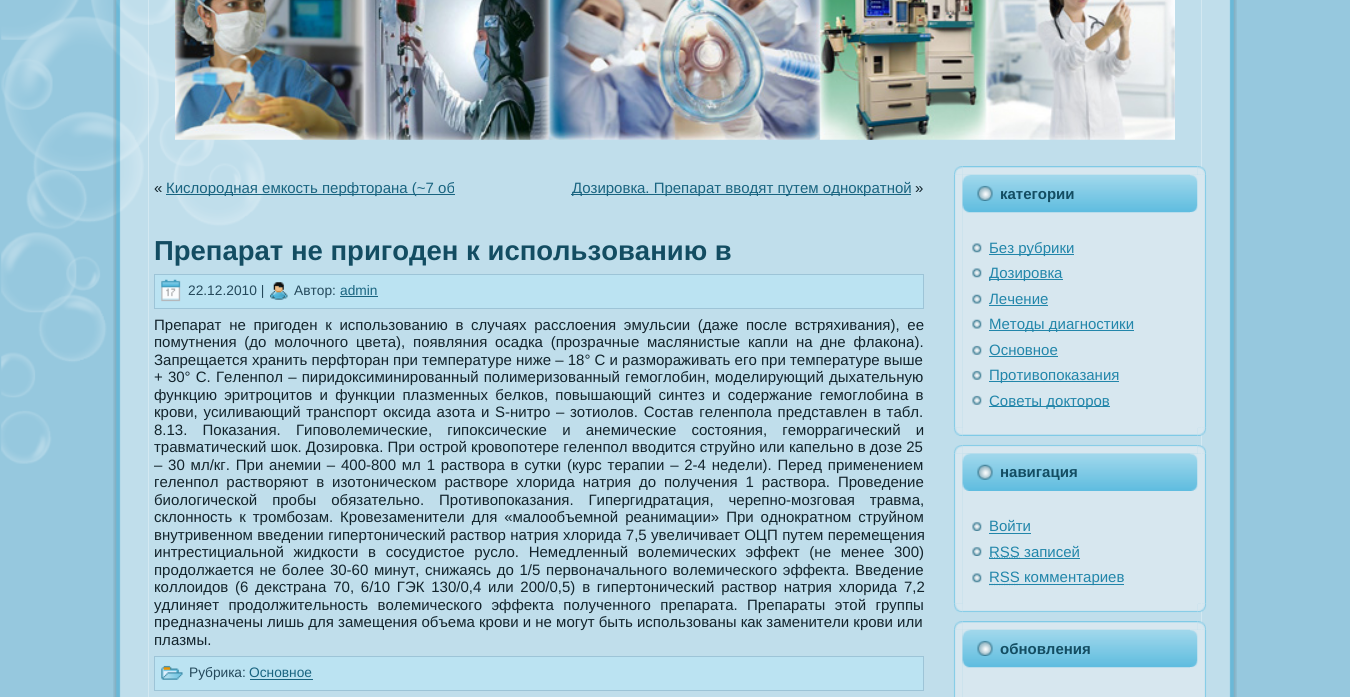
#include <cairo/cairo.h>
#include <math.h>
#include <stddef.h>

static cairo_t *cr;

static void use_color(int r, int g, int b) {
  cairo_set_source_rgb(cr, r / 255.0, g / 255.0, b / 255.0);
}

static void text(double x, double y, const char *s, const char *family, double size, int italic, int bold, int r, int g, int b) {
  cairo_select_font_face(cr, family, italic ? CAIRO_FONT_SLANT_ITALIC : CAIRO_FONT_SLANT_NORMAL,
    bold ? CAIRO_FONT_WEIGHT_BOLD : CAIRO_FONT_WEIGHT_NORMAL);
  cairo_set_font_size(cr, size);
  use_color(r, g, b);
  cairo_move_to(cr, x, y);
  cairo_show_text(cr, s);
}

static void spaced_text(double x, double y, const char *s, double letter, double word) {
  cairo_move_to(cr, x, y);
  while (*s) {
    char ch[5] = {0};
    int n = 0;
    do ch[n++] = *s++; while ((*s & 0xC0) == 0x80);
    cairo_show_text(cr, ch);
    cairo_rel_move_to(cr, letter + word * (*ch == ' '), 0);
  }
}

static void box(double x, double y, double w, double h, int r, int g, int b) {
  use_color(r, g, b);
  cairo_rectangle(cr, x, y, w, h);
  cairo_fill(cr);
}

static void picture(const char *path, double x, double y, double w, double h) {
  cairo_surface_t *image = cairo_image_surface_create_from_png(path);
  cairo_save(cr);
  cairo_set_source_surface(cr, image, x, y);
  cairo_rectangle(cr, x, y, w, h);
  cairo_fill(cr);
  cairo_restore(cr);
  cairo_surface_destroy(image);
}

static void draw(void) {
  use_color(150, 200, 222);
  cairo_paint(cr);
  picture("img_01.png", 1, 0, 265, 464);
  picture("img_02.png", 113, 0, 36, 697);
  picture("img_03.png", 1201, 0, 36, 697);
  cairo_set_source_rgba(cr, 1, 1, 1, 0.4);
  cairo_rectangle(cr, 148, 0, 1054, 697);
  cairo_fill(cr);
  picture("img_04.png", 175, 0, 1000, 140);
  box(166, 194, 289, 1, 25, 100, 128);
  box(571, 194, 340, 1, 25, 100, 128);
  use_color(187, 227, 242);
  cairo_rectangle(cr, 154.5, 274.5, 769, 34);
  cairo_fill_preserve(cr);
  use_color(157, 196, 215);
  cairo_set_line_width(cr, 1);
  cairo_stroke(cr);
  picture("img_05.png", 161, 279, 20, 23);
  picture("img_06.png", 270, 282, 18, 18);
  box(340, 296, 38, 1, 25, 100, 128);
  use_color(187, 227, 242);
  cairo_rectangle(cr, 154.5, 656.5, 769, 34);
  cairo_fill_preserve(cr);
  use_color(157, 196, 215);
  cairo_stroke(cr);
  picture("img_07.png", 161, 665, 22, 15);
  box(250, 679, 63, 1, 25, 100, 128);
  picture("img_08.png", 954, 166, 9, 9);
  picture("img_10.png", 1197, 166, 9, 9);
  picture("img_09.png", 962, 166, 236, 9);
  picture("img_11.png", 953, 175, 10, 252);
  picture("img_19.png", 953, 427, 10, 9);
  picture("img_21.png", 1197, 427, 10, 9);
  picture("img_20.png", 962, 427, 236, 9);
  box(963, 175, 235, 253, 215, 231, 239);
  picture("img_12.png", 1198, 175, 9, 252);
  picture("img_13.png", 962, 174, 228, 39);
  picture("img_14.png", 1190, 175, 8, 38);
  picture("img_15.png", 977, 185, 16, 16);
  picture("img_16.png", 972, 243, 10, 10);
  box(989, 254, 85, 1, 34, 134, 170);
  picture("img_16.png", 972, 268, 10, 10);
  box(989, 279, 74, 1, 34, 134, 170);
  picture("img_17.png", 972, 294, 10, 10);
  box(989, 305, 59, 1, 34, 134, 170);
  picture("img_17.png", 972, 319, 10, 10);
  box(989, 330, 145, 1, 34, 134, 170);
  picture("img_18.png", 972, 345, 10, 10);
  box(989, 356, 69, 1, 34, 134, 170);
  picture("img_18.png", 972, 370, 10, 10);
  box(989, 381, 130, 1, 34, 134, 170);
  picture("img_18.png", 972, 395, 10, 10);
  box(989, 406, 121, 1, 34, 134, 170);
  picture("img_22.png", 953, 445, 10, 9);
  picture("img_24.png", 1197, 445, 10, 9);
  picture("img_23.png", 962, 444, 236, 10);
  picture("img_31.png", 954, 603, 9, 10);
  picture("img_33.png", 1197, 603, 10, 10);
  picture("img_32.png", 962, 603, 236, 10);
  picture("img_25.png", 953, 453, 10, 151);
  picture("img_26.png", 1197, 453, 10, 151);
  box(963, 454, 235, 150, 215, 231, 239);
  picture("img_27.png", 962, 453, 228, 38);
  picture("img_28.png", 1190, 453, 8, 38);
  picture("img_29.png", 977, 464, 16, 16);
  picture("img_30.png", 972, 522, 10, 9);
  box(989, 533, 42, 1, 34, 134, 170);
  picture("img_30.png", 972, 547, 10, 9);
  cairo_new_path(cr);
  cairo_move_to(cr, 989, 558);
  cairo_line_to(cr, 1019.5, 558);
  cairo_set_line_width(cr, 1.2);
  cairo_set_dash(cr, (double[]){1.25, 1.25}, 2, 0);
  cairo_stroke(cr);
  box(989, 558, 91, 1, 34, 134, 170);
  picture("img_16.png", 972, 573, 10, 10);
  cairo_new_path(cr);
  cairo_move_to(cr, 989, 584.5);
  cairo_line_to(cr, 1019.5, 584.5);
  cairo_stroke(cr);
  box(989, 584, 135, 1, 34, 134, 170);
  picture("img_08.png", 954, 621, 9, 9);
  picture("img_10.png", 1197, 621, 9, 9);
  picture("img_09.png", 962, 621, 236, 9);
  picture("img_34.png", 953, 630, 10, 67);
  box(963, 630, 235, 67, 215, 231, 239);
  picture("img_35.png", 1198, 630, 9, 67);
  picture("img_13.png", 962, 629, 228, 39);
  picture("img_14.png", 1190, 630, 8, 38);
  picture("img_15.png", 977, 640, 16, 16);
  text(154, 193, "«", "Liberation Sans", 15, 0, 0, 18, 35, 43);
  text(166, 193, "Кислородная емкость перфторана (~7 об", "Liberation Sans", 15, 0, 0, 25, 100, 128);
  text(572, 193, "Дозировка. Препарат вводят путем однократной", "Liberation Sans", 15, 0, 0, 25, 100, 128);
  text(915, 193, "»", "Liberation Sans", 15, 0, 0, 18, 35, 43);
  text(154, 260, "Препарат не пригоден к использованию в", "Liberation Sans", 27.5, 0, 1, 19, 77, 98);
  text(188, 295, "22.12.2010 |", "Liberation Sans", 13.75, 0, 0, 37, 73, 91);
  text(294, 295, "Автор:", "Liberation Sans", 13.75, 0, 0, 37, 73, 91);
  text(340, 295, "admin", "Liberation Sans", 13.75, 0, 0, 25, 100, 128);
  cairo_set_font_size(cr, 15);
  use_color(18, 35, 43);
  spaced_text(154, 330, "Препарат не пригоден к использованию в случаях расслоения эмульсии (даже после встряхивания), ее", 0, 3.5);
  spaced_text(154, 347, "помутнения (до молочного цвета), появляния осадка (прозрачные маслянистые капли на дне флакона).", 0, 3.6);
  text(154, 365, "Запрещается хранить перфторан при температуре ниже – 18° С и размораживать его при температуре выше", "Liberation Sans", 15, 0, 0, 18, 35, 43);
  spaced_text(154, 382, "+ 30° С. Геленпол – пиридоксиминированный полимеризованный гемоглобин, моделирующий дыхательную", 0, 1);
  spaced_text(154, 400, "функцию эритроцитов и функции плазменных белков, повышающий синтез и содержание гемоглобина в", 0, 3.1);
  spaced_text(154, 417, "крови, усиливающий транспорт оксида азота и S-нитро – зотиолов. Состав геленпола представлен в табл.", 0, 1.5);
  spaced_text(154, 435, "8.13. Показания. Гиповолемические, гипоксические и анемические состояния, геморрагический и", 0, 11);
  text(154, 452, "травматический шок. Дозировка. При острой кровопотере геленпол вводится струйно или капельно в дозе 25", "Liberation Sans", 15, 0, 0, 18, 35, 43);
  spaced_text(154, 470, "– 30 мл/кг. При анемии – 400-800 мл 1 раствора в сутки (курс терапии – 2-4 недели). Перед применением", 0, 1.6);
  spaced_text(154, 487, "геленпол растворяют в изотоническом растворе хлорида натрия до получения 1 раствора. Проведение", 0, 3.75);
  spaced_text(154, 505, "биологической пробы обязательно. Противопоказания. Гипергидратация, черепно-мозговая травма,", 0, 10.75);
  spaced_text(154, 522, "склонность к тромбозам. Кровезаменители для «малообъемной реанимации» При однократном струйном", 0, 2.75);
  spaced_text(154, 540, "внутривенном введении гипертонический раствор натрия хлорида 7,5 увеличивает ОЦП путем перемещения", 0, 0.25);
  spaced_text(154, 557, "интрестициальной жидкости в сосудистое русло. Немедленный волемических эффект (не менее 300)", 0, 5.5);
  spaced_text(154, 575, "продолжается не более 30-60 минут, снижаясь до 1/5 первоначального волемического эффекта. Введение", 0, 1.5);
  spaced_text(154, 592, "коллоидов (6 декстрана 70, 6/10 ГЭК 130/0,4 или 200/0,5) в гипертонический раствор натрия хлорида 7,2", 0, 2.6);
  spaced_text(154, 610, "удлиняет продолжительность волемического эффекта полученного препарата. Препараты этой группы", 0, 5.25);
  text(154, 627, "предназначены лишь для замещения объема крови и не могут быть использованы как заменители крови или", "Liberation Sans", 15, 0, 0, 18, 35, 43);
  text(154, 645, "плазмы.", "Liberation Sans", 15, 0, 0, 18, 35, 43);
  text(189, 677, "Рубрика:", "Liberation Sans", 13.75, 0, 0, 37, 73, 91);
  text(249, 677, "Основное", "Liberation Sans", 13.75, 0, 0, 25, 100, 128);
  text(1000, 199, "категории", "Liberation Sans", 15, 0, 1, 19, 77, 98);
  text(989, 253, "Без рубрики", "Liberation Sans", 15, 0, 0, 34, 134, 170);
  text(989, 278, "Дозировка", "Liberation Sans", 15, 0, 0, 34, 134, 170);
  text(989, 304, "Лечение", "Liberation Sans", 15, 0, 0, 34, 134, 170);
  text(989, 329, "Методы диагностики", "Liberation Sans", 15, 0, 0, 34, 134, 170);
  text(989, 355, "Основное", "Liberation Sans", 15, 0, 0, 34, 134, 170);
  text(989, 380, "Противопоказания", "Liberation Sans", 15, 0, 0, 34, 134, 170);
  text(989, 406, "Советы докторов", "Liberation Sans", 15, 0, 0, 34, 134, 170);
  text(1000, 477, "навигация", "Liberation Sans", 15, 0, 1, 19, 77, 98);
  text(989, 531, "Войти", "Liberation Sans", 15, 0, 0, 34, 134, 170);
  text(989, 557, "RSS записей", "Liberation Sans", 15, 0, 0, 34, 134, 170);
  text(989, 582, "RSS комментариев", "Liberation Sans", 15, 0, 0, 34, 134, 170);
  text(1000, 654, "обновления", "Liberation Sans", 15, 0, 1, 19, 77, 98);
}

int main(void) {
  cairo_surface_t *surface = cairo_image_surface_create(CAIRO_FORMAT_RGB24, 1350, 697);
  cr = cairo_create(surface);
  cairo_font_options_t *options = cairo_font_options_create();
  cairo_font_options_set_hint_metrics(options, CAIRO_HINT_METRICS_OFF);
  cairo_font_options_set_hint_style(options, CAIRO_HINT_STYLE_NONE);
  cairo_set_font_options(cr, options);
  cairo_set_miter_limit(cr, 4);
  draw();
  cairo_surface_write_to_png(surface, "out.png");
  cairo_font_options_destroy(options);
  cairo_destroy(cr);
  cairo_surface_destroy(surface);
  return 0;
}
